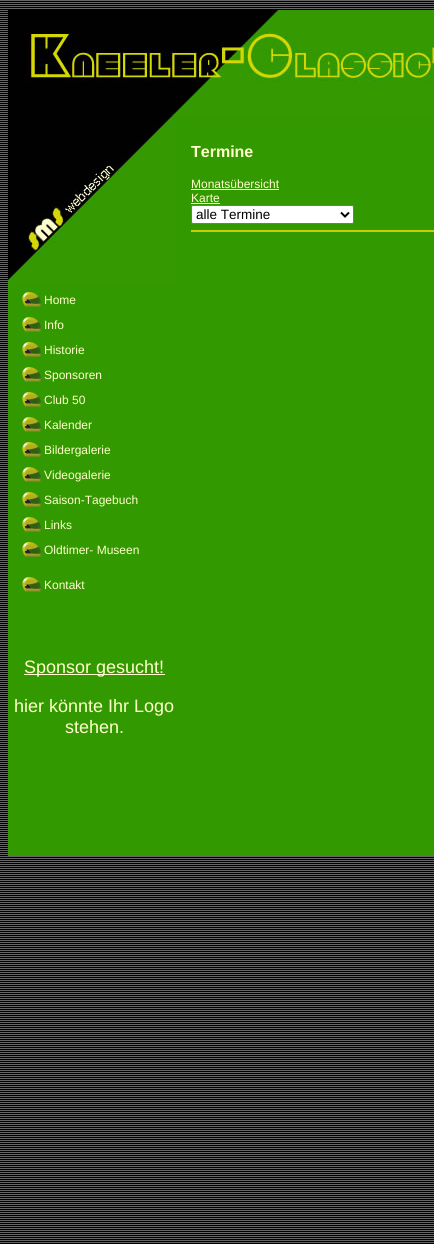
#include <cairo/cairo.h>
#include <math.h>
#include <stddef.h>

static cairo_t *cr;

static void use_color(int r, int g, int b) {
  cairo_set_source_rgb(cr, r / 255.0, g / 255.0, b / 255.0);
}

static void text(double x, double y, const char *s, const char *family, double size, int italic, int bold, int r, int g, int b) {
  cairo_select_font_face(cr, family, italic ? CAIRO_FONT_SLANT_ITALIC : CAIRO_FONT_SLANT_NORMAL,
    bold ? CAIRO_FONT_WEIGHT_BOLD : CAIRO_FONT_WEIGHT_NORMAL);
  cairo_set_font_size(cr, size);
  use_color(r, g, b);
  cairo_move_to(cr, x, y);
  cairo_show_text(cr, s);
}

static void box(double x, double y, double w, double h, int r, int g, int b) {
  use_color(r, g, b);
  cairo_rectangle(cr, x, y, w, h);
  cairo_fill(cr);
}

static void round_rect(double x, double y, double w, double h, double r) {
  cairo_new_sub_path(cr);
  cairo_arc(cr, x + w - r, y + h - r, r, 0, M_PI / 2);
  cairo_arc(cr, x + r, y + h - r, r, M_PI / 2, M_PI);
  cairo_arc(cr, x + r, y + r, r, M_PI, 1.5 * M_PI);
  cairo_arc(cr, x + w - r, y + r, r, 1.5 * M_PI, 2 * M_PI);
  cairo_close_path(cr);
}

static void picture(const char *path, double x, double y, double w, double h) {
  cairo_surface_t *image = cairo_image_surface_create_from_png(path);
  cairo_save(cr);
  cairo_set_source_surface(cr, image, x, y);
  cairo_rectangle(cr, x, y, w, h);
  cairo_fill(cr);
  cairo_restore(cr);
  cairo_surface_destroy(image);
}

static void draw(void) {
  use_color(255, 255, 255);
  cairo_paint(cr);
  picture("img_01.png", 0, 0, 434, 1244);
  box(8, 117, 426, 739, 51, 153, 0);
  picture("img_02.png", 8, 10, 426, 107);
  box(191, 189, 88, 1, 255, 255, 204);
  box(191, 203, 29, 1, 255, 255, 204);
  use_color(255, 255, 255);
  round_rect(191.5, 205.5, 162, 18, 1.5);
  cairo_fill_preserve(cr);
  use_color(118, 118, 118);
  cairo_set_line_width(cr, 1);
  cairo_stroke(cr);
  cairo_new_path(cr);
  cairo_move_to(cr, 341, 212.5);
  cairo_line_to(cr, 345, 216.5);
  cairo_line_to(cr, 349, 212.5);
  use_color(0, 0, 0);
  cairo_set_line_width(cr, 2);
  cairo_stroke(cr);
  box(191, 230, 243, 2, 204, 204, 0);
  picture("img_03.png", 8, 117, 168, 168);
  picture("img_04.png", 22, 292, 19, 15);
  picture("img_04.png", 22, 317, 19, 15);
  picture("img_04.png", 22, 342, 19, 15);
  picture("img_04.png", 22, 367, 19, 15);
  picture("img_04.png", 22, 392, 19, 15);
  picture("img_04.png", 22, 417, 19, 15);
  picture("img_04.png", 22, 442, 19, 15);
  picture("img_04.png", 22, 467, 19, 15);
  picture("img_04.png", 22, 492, 19, 15);
  picture("img_04.png", 22, 517, 19, 15);
  picture("img_04.png", 22, 542, 19, 15);
  picture("img_04.png", 22, 577, 19, 15);
  box(24, 674, 141, 1, 255, 255, 204);
  text(191, 157, "Termine", "Liberation Sans", 16, 0, 1, 255, 255, 204);
  text(191, 188, "Monatsübersicht", "Liberation Sans", 12, 0, 0, 255, 255, 204);
  text(191, 202, "Karte", "Liberation Sans", 12, 0, 0, 255, 255, 204);
  text(196, 219, "alle Termine", "Liberation Sans", 13.5, 0, 0, 0, 0, 0);
  text(44, 304, "Home", "Liberation Sans", 12, 0, 0, 255, 255, 204);
  text(44, 329, "Info", "Liberation Sans", 12, 0, 0, 255, 255, 204);
  text(44, 354, "Historie", "Liberation Sans", 12, 0, 0, 255, 255, 204);
  text(44, 379, "Sponsoren", "Liberation Sans", 12, 0, 0, 255, 255, 204);
  text(44, 404, "Club 50", "Liberation Sans", 12, 0, 0, 255, 255, 204);
  text(44, 429, "Kalender", "Liberation Sans", 12, 0, 0, 255, 255, 204);
  text(44, 454, "Bildergalerie", "Liberation Sans", 12, 0, 0, 255, 255, 204);
  text(44, 479, "Videogalerie", "Liberation Sans", 12, 0, 0, 255, 255, 204);
  text(44, 504, "Saison-Tagebuch", "Liberation Sans", 12, 0, 0, 255, 255, 204);
  text(44, 529, "Links", "Liberation Sans", 12, 0, 0, 255, 255, 204);
  text(44, 554, "Oldtimer- Museen", "Liberation Sans", 12, 0, 0, 255, 255, 204);
  text(44, 589, "Kontakt", "Liberation Sans", 12, 0, 0, 255, 255, 204);
  text(24, 673, "Sponsor gesucht!", "Liberation Sans", 18, 0, 0, 255, 255, 204);
  text(14, 712, "hier könnte Ihr Logo", "Liberation Sans", 18, 0, 0, 255, 255, 204);
  text(65, 733, "stehen.", "Liberation Sans", 18, 0, 0, 255, 255, 204);
}

int main(void) {
  cairo_surface_t *surface = cairo_image_surface_create(CAIRO_FORMAT_RGB24, 434, 1244);
  cr = cairo_create(surface);
  cairo_font_options_t *options = cairo_font_options_create();
  cairo_font_options_set_hint_metrics(options, CAIRO_HINT_METRICS_OFF);
  cairo_font_options_set_hint_style(options, CAIRO_HINT_STYLE_NONE);
  cairo_set_font_options(cr, options);
  cairo_set_miter_limit(cr, 4);
  draw();
  cairo_surface_write_to_png(surface, "out.png");
  cairo_font_options_destroy(options);
  cairo_destroy(cr);
  cairo_surface_destroy(surface);
  return 0;
}
